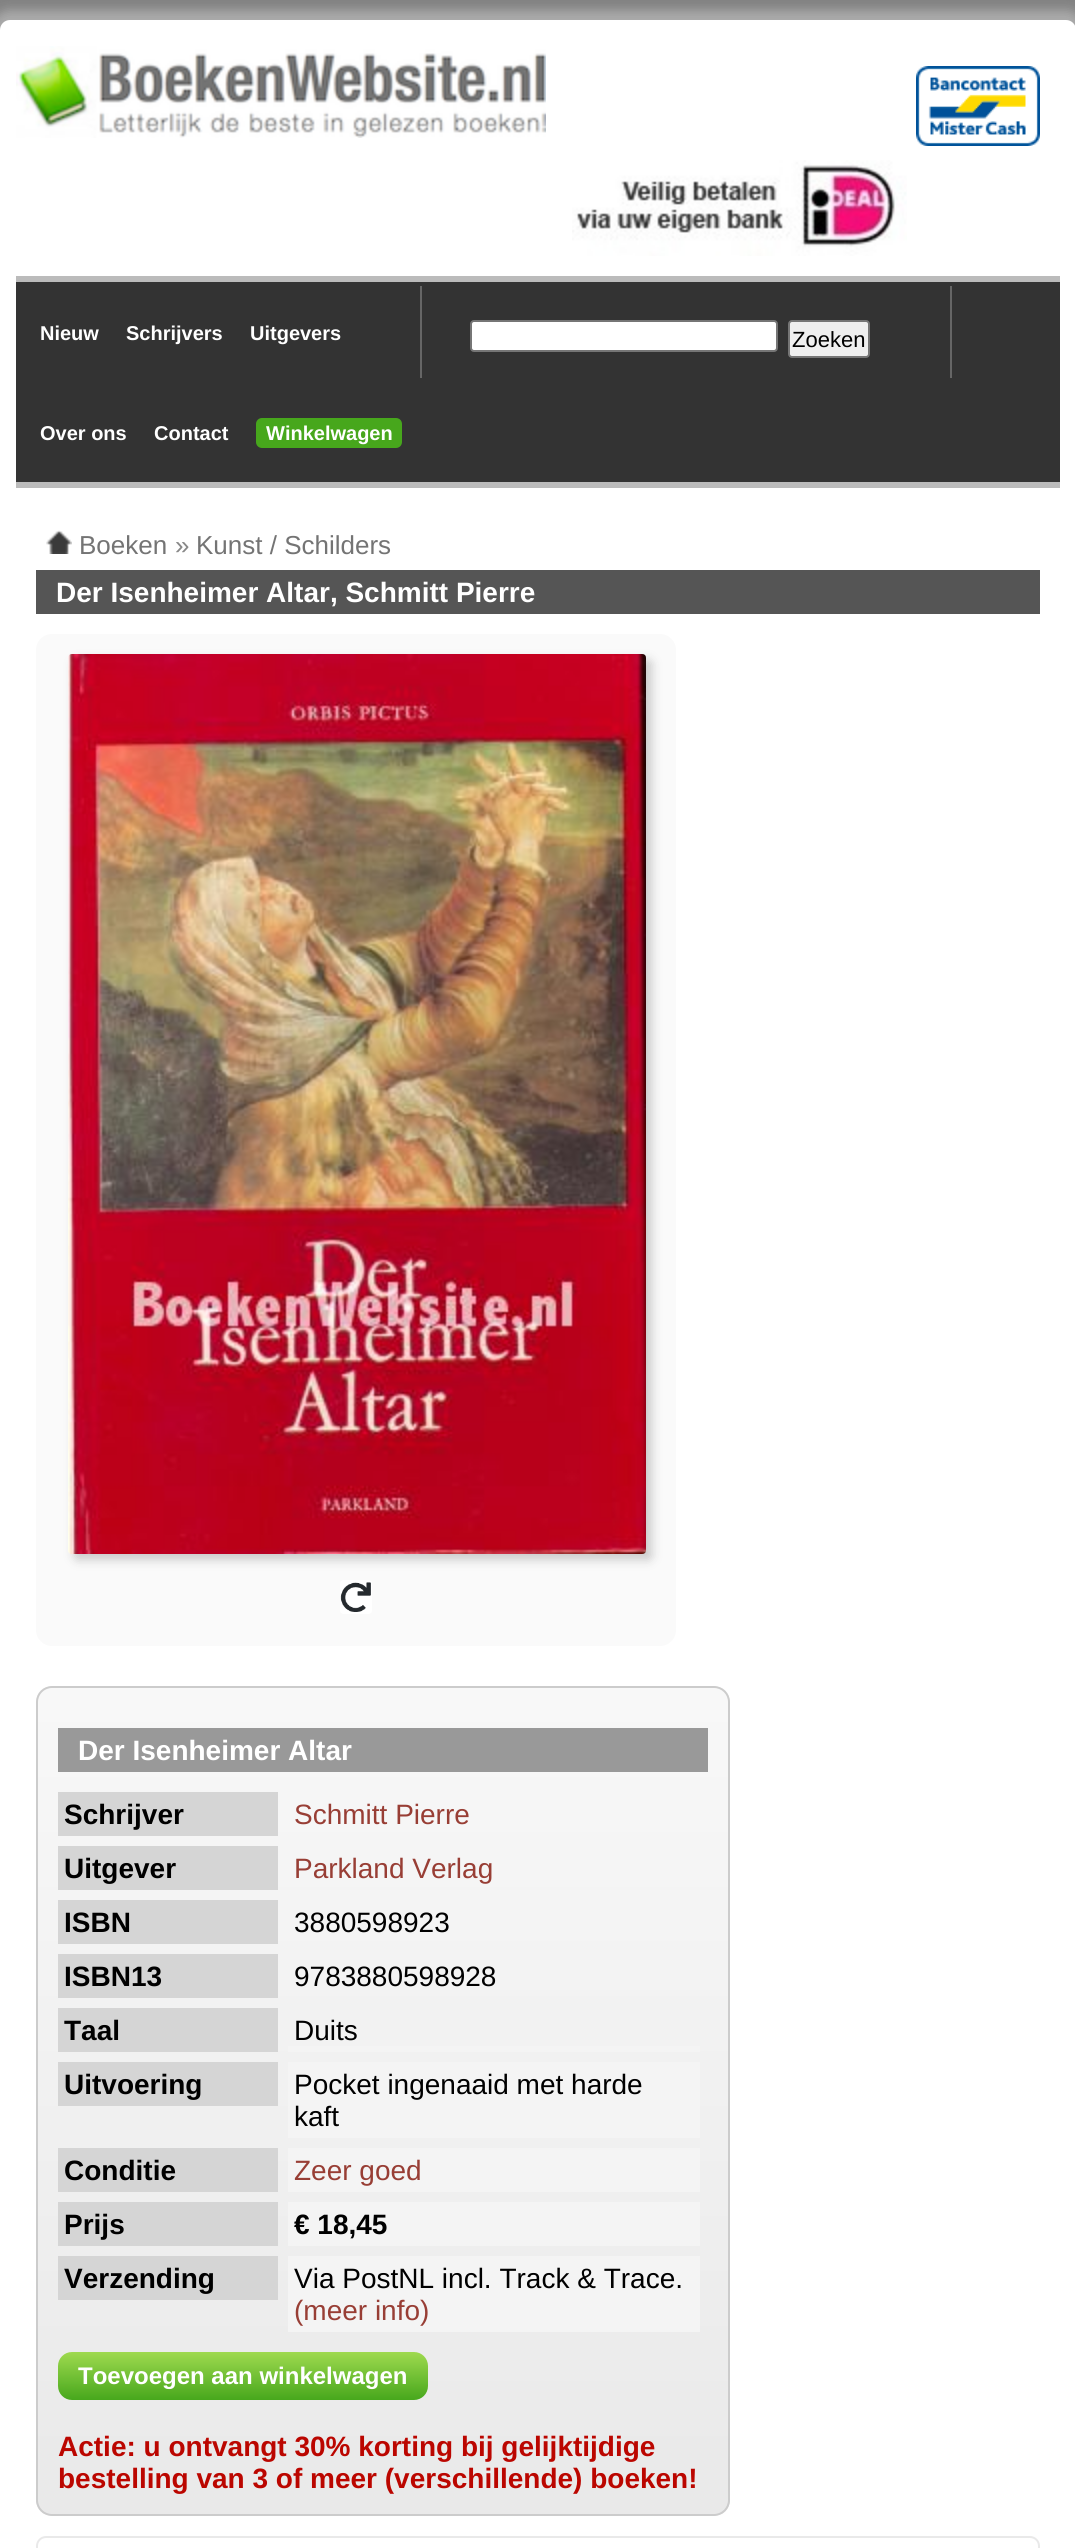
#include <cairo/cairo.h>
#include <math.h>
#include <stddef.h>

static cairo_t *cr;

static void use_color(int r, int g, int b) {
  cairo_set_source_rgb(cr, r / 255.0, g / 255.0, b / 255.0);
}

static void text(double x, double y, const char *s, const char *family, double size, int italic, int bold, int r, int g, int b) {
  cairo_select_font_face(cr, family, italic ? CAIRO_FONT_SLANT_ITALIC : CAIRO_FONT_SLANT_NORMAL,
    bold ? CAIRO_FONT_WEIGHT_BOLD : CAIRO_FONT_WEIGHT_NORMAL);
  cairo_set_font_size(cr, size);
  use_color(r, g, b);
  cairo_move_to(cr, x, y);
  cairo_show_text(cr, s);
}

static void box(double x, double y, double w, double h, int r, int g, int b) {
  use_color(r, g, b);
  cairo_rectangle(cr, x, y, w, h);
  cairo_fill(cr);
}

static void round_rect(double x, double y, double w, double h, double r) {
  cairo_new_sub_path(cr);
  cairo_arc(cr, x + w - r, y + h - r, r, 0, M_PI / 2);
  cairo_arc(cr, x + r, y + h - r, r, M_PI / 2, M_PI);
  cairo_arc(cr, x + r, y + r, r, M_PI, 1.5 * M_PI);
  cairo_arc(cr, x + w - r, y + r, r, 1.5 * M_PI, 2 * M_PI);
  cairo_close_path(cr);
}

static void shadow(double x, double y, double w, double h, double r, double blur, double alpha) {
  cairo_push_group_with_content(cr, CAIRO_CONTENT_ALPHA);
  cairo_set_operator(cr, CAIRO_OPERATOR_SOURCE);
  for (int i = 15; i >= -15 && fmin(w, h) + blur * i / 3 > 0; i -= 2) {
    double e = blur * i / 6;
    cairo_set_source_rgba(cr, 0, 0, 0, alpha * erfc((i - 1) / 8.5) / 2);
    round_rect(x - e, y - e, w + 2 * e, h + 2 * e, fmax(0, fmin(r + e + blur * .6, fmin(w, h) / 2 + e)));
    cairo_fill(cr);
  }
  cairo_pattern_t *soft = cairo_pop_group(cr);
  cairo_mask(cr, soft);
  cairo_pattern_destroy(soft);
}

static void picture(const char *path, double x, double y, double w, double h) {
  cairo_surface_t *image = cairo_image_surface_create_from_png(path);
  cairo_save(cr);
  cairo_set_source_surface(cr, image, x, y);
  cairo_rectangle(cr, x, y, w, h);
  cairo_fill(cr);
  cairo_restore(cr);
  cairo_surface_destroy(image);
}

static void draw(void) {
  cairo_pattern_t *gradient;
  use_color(130, 130, 130);
  cairo_paint(cr);
  use_color(170, 170, 170);
  shadow(-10, 10, 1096, 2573, 20, 5, 1);
  use_color(255, 255, 255);
  round_rect(0, 20, 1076, 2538, 10);
  cairo_fill(cr);
  picture("img_01.png", 16, 46, 530, 92);
  picture("img_02.png", 916, 66, 124, 80);
  picture("img_03.png", 572, 160, 335, 96);
  box(16, 282, 1044, 200, 51, 51, 51);
  box(16, 276, 1044, 6, 187, 187, 187);
  box(16, 482, 1044, 6, 187, 187, 187);
  box(420, 286, 2, 92, 102, 102, 102);
  box(950, 286, 2, 92, 102, 102, 102);
  use_color(255, 255, 255);
  round_rect(471, 321, 306, 30, 3);
  cairo_fill_preserve(cr);
  use_color(118, 118, 118);
  cairo_stroke(cr);
  use_color(239, 239, 239);
  round_rect(789, 321, 80, 36, 3);
  cairo_fill_preserve(cr);
  use_color(118, 118, 118);
  cairo_stroke(cr);
  use_color(71, 167, 28);
  round_rect(256, 418, 146, 30, 6);
  cairo_fill(cr);
  picture("img_04.png", 46, 530, 26, 24);
  box(36, 570, 1004, 44, 85, 85, 85);
  use_color(250, 250, 250);
  round_rect(36, 634, 640, 1012, 16);
  cairo_fill(cr);
  use_color(204, 204, 204);
  shadow(74, 660, 578, 900, 4, 5, 1);
  picture("img_05.png", 68, 654, 578, 900);
  picture("img_06.png", 340, 1580, 32, 34);
  cairo_save(cr);
  round_rect(36, 1686, 694, 830, 16);
  cairo_clip(cr);
  gradient = cairo_pattern_create_linear(38, 1688, 38, 2514);
  cairo_pattern_add_color_stop_rgba(gradient, 0, 0.973, 0.973, 0.973, 1);
  cairo_pattern_add_color_stop_rgba(gradient, 1, 0.914, 0.914, 0.914, 1);
  cairo_set_source(cr, gradient);
  cairo_pattern_destroy(gradient);
  cairo_rectangle(cr, 36, 1688, 694, 826);
  cairo_fill(cr);
  cairo_restore(cr);
  round_rect(37, 1687, 692, 828, 15);
  use_color(204, 204, 204);
  cairo_stroke(cr);
  box(58, 1728, 650, 44, 153, 153, 153);
  box(58, 1792, 220, 44, 213, 213, 213);
  box(58, 1846, 220, 44, 213, 213, 213);
  box(58, 1900, 220, 44, 213, 213, 213);
  box(58, 1954, 220, 44, 213, 213, 213);
  box(58, 2008, 220, 44, 213, 213, 213);
  box(288, 2046, 412, 6, 244, 244, 244);
  box(58, 2062, 220, 44, 213, 213, 213);
  box(288, 2062, 412, 76, 244, 244, 244);
  box(58, 2148, 220, 44, 213, 213, 213);
  box(288, 2148, 412, 44, 244, 244, 244);
  box(58, 2202, 220, 44, 213, 213, 213);
  box(288, 2202, 412, 44, 244, 244, 244);
  box(58, 2256, 220, 44, 213, 213, 213);
  box(288, 2256, 412, 76, 244, 244, 244);
  gradient = cairo_pattern_create_linear(58, 2352, 58, 2400);
  cairo_pattern_add_color_stop_rgba(gradient, 0, 0.624, 0.855, 0.31, 1);
  cairo_pattern_add_color_stop_rgba(gradient, 1, 0.278, 0.655, 0.11, 1);
  cairo_set_source(cr, gradient);
  cairo_pattern_destroy(gradient);
  round_rect(58, 2352, 370, 48, 14);
  cairo_fill(cr);
  round_rect(37, 2537, 1002, 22, 9);
  use_color(233, 233, 233);
  cairo_stroke(cr);
  text(40, 340, "Nieuw", "Liberation Sans", 20, 0, 1, 255, 255, 255);
  text(126, 340, "Schrijvers", "Liberation Sans", 20, 0, 1, 255, 255, 255);
  text(250, 340, "Uitgevers", "Liberation Sans", 20, 0, 1, 255, 255, 255);
  text(792, 347, "Zoeken", "Liberation Sans", 22, 0, 0, 0, 0, 0);
  text(40, 440, "Over ons", "Liberation Sans", 20, 0, 1, 255, 255, 255);
  text(154, 440, "Contact", "Liberation Sans", 20, 0, 1, 255, 255, 255);
  text(266, 440, "Winkelwagen", "Liberation Sans", 20, 0, 1, 255, 255, 255);
  text(79, 554, "Boeken", "Liberation Sans", 26, 0, 0, 116, 116, 116);
  text(175, 554, "»", "Liberation Sans", 26, 0, 0, 136, 136, 136);
  text(196, 554, "Kunst / Schilders", "Liberation Sans", 26, 0, 0, 116, 116, 116);
  text(56, 602, "Der Isenheimer Altar, Schmitt Pierre", "Liberation Sans", 28, 0, 1, 255, 255, 255);
  text(78, 1760, "Der Isenheimer Altar", "Liberation Sans", 28, 0, 1, 255, 255, 255);
  text(64, 1824, "Schrijver", "Liberation Sans", 28, 0, 1, 0, 0, 0);
  text(294, 1824, "Schmitt Pierre", "Liberation Sans", 28, 0, 0, 152, 62, 53);
  text(64, 1878, "Uitgever", "Liberation Sans", 28, 0, 1, 0, 0, 0);
  text(294, 1878, "Parkland Verlag", "Liberation Sans", 28, 0, 0, 152, 62, 53);
  text(64, 1932, "ISBN", "Liberation Sans", 28, 0, 1, 0, 0, 0);
  text(294, 1932, "3880598923", "Liberation Sans", 28, 0, 0, 0, 0, 0);
  text(64, 1986, "ISBN13", "Liberation Sans", 28, 0, 1, 0, 0, 0);
  text(294, 1986, "9783880598928", "Liberation Sans", 28, 0, 0, 0, 0, 0);
  text(64, 2040, "Taal", "Liberation Sans", 28, 0, 1, 0, 0, 0);
  text(294, 2040, "Duits", "Liberation Sans", 28, 0, 0, 0, 0, 0);
  text(64, 2094, "Uitvoering", "Liberation Sans", 28, 0, 1, 0, 0, 0);
  text(294, 2094, "Pocket ingenaaid met harde", "Liberation Sans", 28, 0, 0, 0, 0, 0);
  text(294, 2126, "kaft", "Liberation Sans", 28, 0, 0, 0, 0, 0);
  text(64, 2180, "Conditie", "Liberation Sans", 28, 0, 1, 0, 0, 0);
  text(294, 2180, "Zeer goed", "Liberation Sans", 28, 0, 0, 152, 62, 53);
  text(64, 2234, "Prijs", "Liberation Sans", 28, 0, 1, 0, 0, 0);
  text(294, 2234, "€ 18,45", "Liberation Sans", 28, 0, 1, 0, 0, 0);
  text(64, 2288, "Verzending", "Liberation Sans", 28, 0, 1, 0, 0, 0);
  text(294, 2288, "Via PostNL incl. Track & Trace.", "Liberation Sans", 28, 0, 0, 0, 0, 0);
  text(294, 2320, "(meer info)", "Liberation Sans", 28, 0, 0, 152, 62, 53);
  text(78, 2384, "Toevoegen aan winkelwagen", "Liberation Sans", 24, 0, 1, 255, 255, 255);
  text(58, 2456, "Actie: u ontvangt 30% korting bij gelijktijdige", "Liberation Sans", 28, 0, 1, 187, 6, 0);
  text(58, 2488, "bestelling van 3 of meer (verschillende) boeken!", "Liberation Sans", 28, 0, 1, 187, 6, 0);
}

int main(void) {
  cairo_surface_t *surface = cairo_image_surface_create(CAIRO_FORMAT_RGB24, 1075, 2548);
  cr = cairo_create(surface);
  cairo_font_options_t *options = cairo_font_options_create();
  cairo_font_options_set_hint_metrics(options, CAIRO_HINT_METRICS_OFF);
  cairo_font_options_set_hint_style(options, CAIRO_HINT_STYLE_NONE);
  cairo_set_font_options(cr, options);
  cairo_set_miter_limit(cr, 4);
  draw();
  cairo_surface_write_to_png(surface, "out.png");
  cairo_font_options_destroy(options);
  cairo_destroy(cr);
  cairo_surface_destroy(surface);
  return 0;
}
